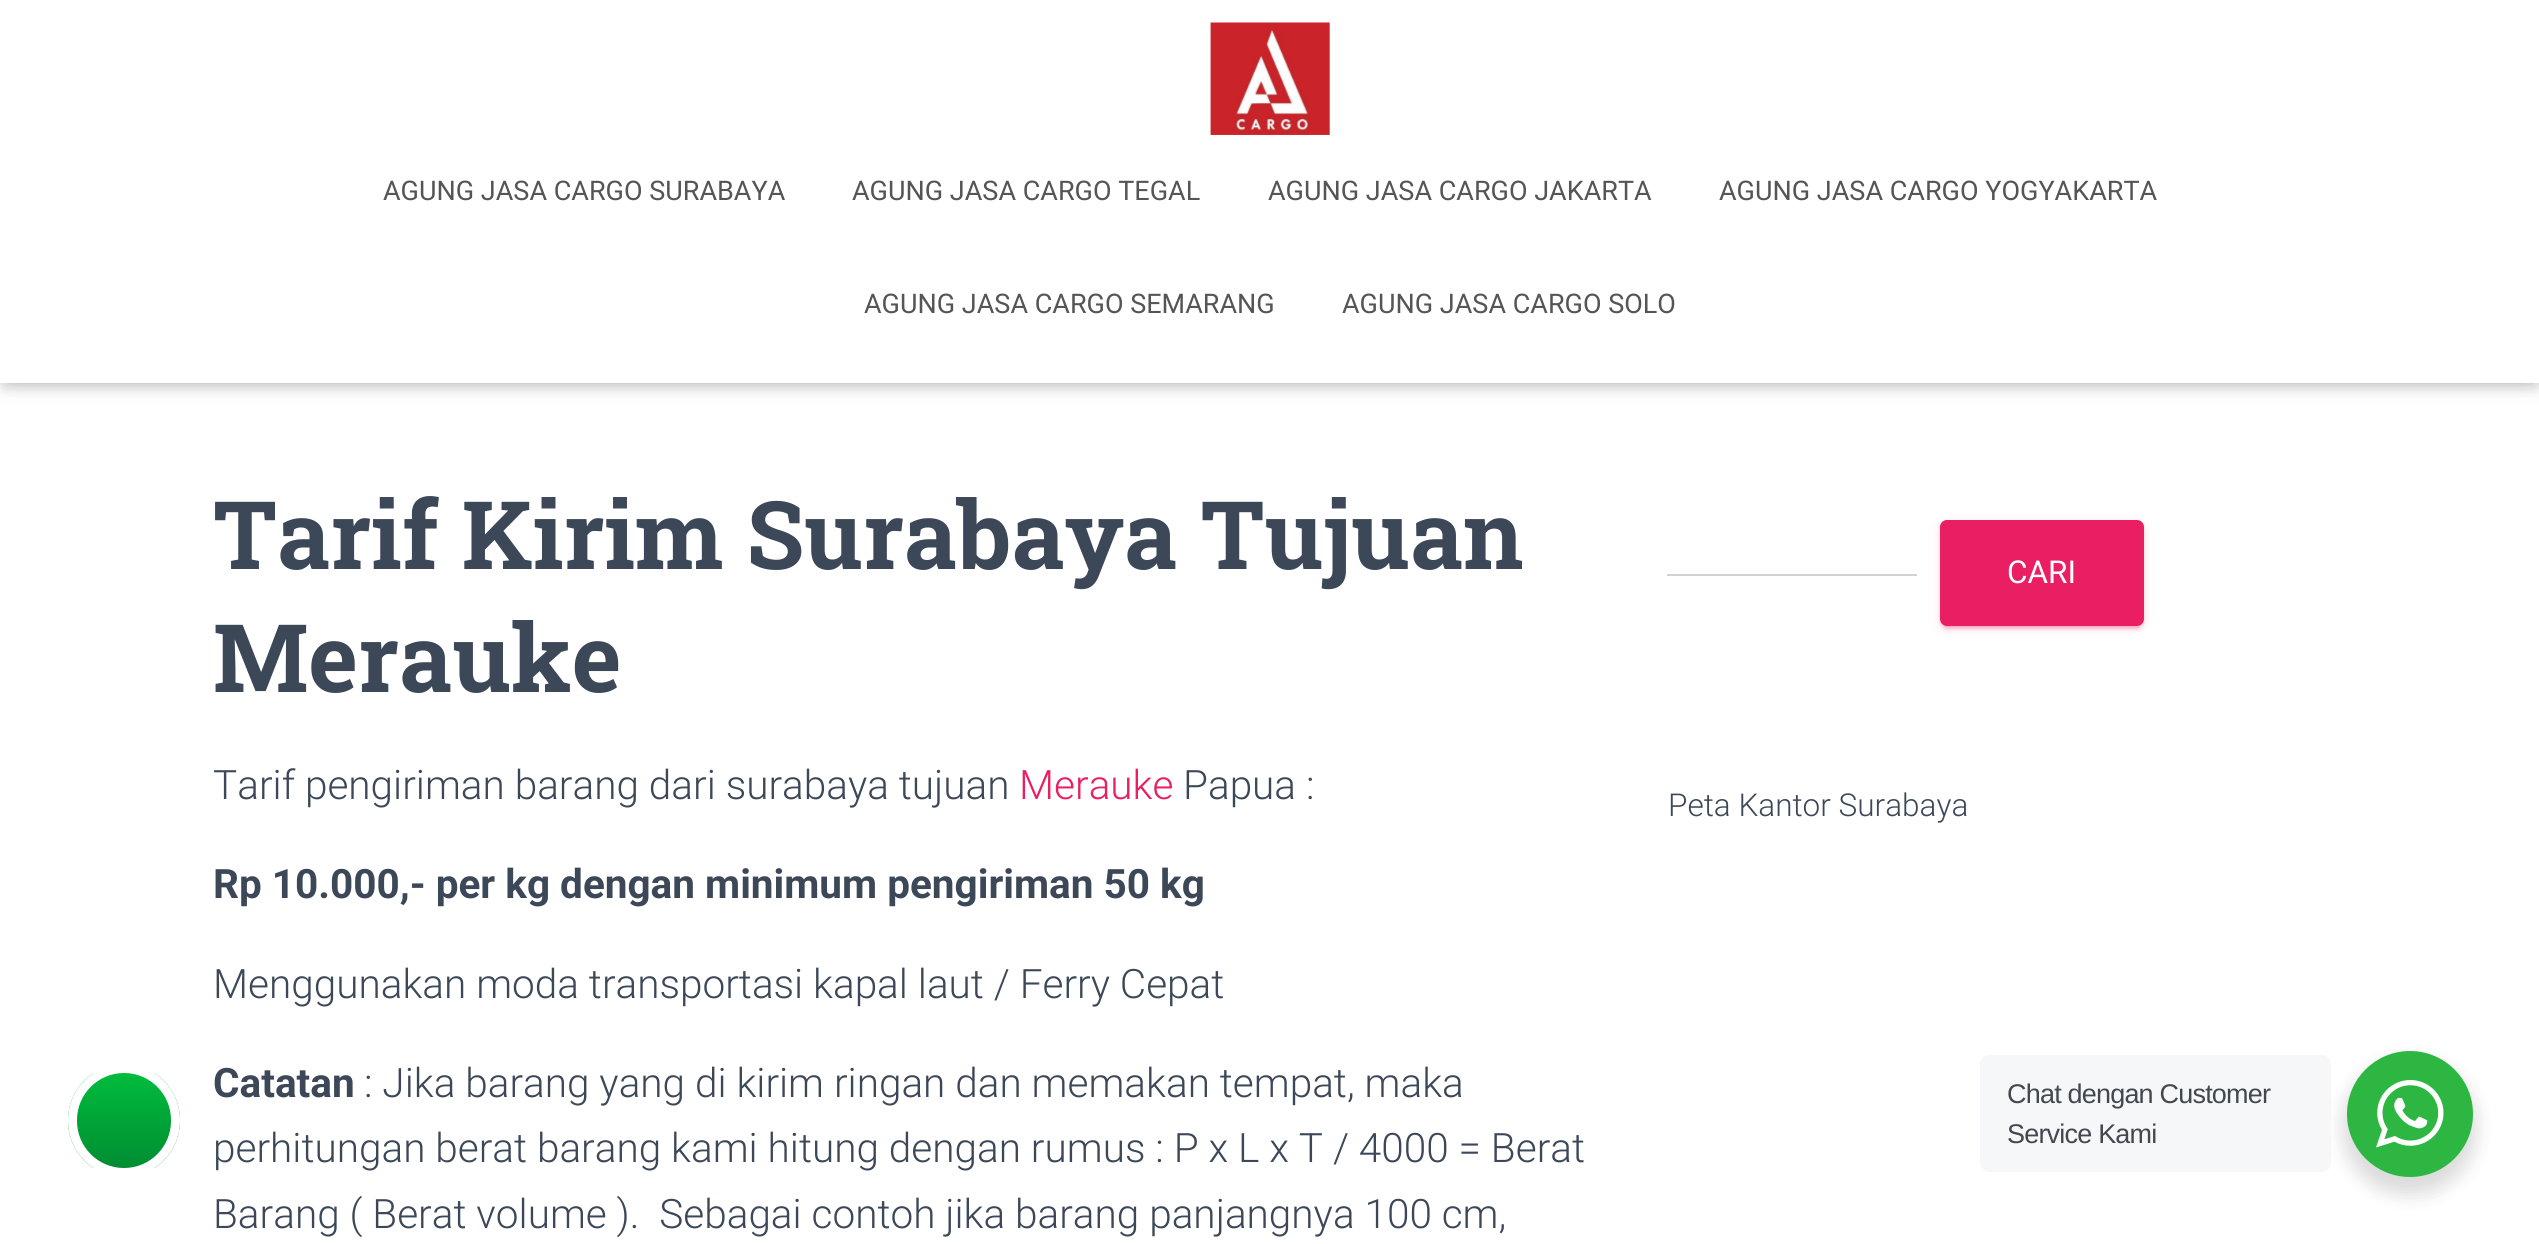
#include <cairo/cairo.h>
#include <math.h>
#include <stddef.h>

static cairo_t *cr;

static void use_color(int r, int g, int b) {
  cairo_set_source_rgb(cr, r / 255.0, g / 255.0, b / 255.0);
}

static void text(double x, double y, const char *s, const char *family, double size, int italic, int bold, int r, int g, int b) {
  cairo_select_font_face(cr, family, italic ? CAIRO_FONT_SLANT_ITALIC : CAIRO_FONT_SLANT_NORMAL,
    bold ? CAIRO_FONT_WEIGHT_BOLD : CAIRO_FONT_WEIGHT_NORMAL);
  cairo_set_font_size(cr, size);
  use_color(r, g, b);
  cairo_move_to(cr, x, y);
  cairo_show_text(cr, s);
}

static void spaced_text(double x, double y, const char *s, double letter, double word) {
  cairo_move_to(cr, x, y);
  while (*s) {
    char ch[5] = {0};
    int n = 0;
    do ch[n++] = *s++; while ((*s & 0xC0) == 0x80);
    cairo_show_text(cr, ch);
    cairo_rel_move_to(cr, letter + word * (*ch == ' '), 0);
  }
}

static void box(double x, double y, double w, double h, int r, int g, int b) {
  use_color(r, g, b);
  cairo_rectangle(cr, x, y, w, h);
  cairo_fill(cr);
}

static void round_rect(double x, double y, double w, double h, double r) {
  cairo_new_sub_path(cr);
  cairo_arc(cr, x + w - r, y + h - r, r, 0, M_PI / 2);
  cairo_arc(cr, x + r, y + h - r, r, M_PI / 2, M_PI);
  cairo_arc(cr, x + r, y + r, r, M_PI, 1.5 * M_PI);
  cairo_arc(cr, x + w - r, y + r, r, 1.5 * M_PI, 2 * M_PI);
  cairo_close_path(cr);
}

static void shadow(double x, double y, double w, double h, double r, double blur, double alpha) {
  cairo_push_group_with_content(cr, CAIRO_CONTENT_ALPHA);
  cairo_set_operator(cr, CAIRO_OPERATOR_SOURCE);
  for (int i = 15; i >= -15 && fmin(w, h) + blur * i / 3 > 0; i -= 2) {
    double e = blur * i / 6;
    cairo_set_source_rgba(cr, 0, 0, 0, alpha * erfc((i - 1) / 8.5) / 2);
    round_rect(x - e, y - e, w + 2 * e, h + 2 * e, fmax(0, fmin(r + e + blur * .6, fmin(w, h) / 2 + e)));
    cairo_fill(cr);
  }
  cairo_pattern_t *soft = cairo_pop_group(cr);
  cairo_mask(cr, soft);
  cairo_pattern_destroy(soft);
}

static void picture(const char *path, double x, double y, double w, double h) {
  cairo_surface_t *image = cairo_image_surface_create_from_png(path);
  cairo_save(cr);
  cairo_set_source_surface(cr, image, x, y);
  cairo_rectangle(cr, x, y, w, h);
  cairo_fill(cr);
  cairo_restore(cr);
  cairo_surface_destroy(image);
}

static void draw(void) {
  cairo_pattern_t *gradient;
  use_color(255, 255, 255);
  cairo_paint(cr);
  cairo_save(cr);
  round_rect(68, 1064, 112, 113, 56);
  cairo_clip(cr);
  gradient = cairo_pattern_create_linear(124, 1073, 124, 1168);
  cairo_pattern_add_color_stop_rgba(gradient, 0, 0, 0.737, 0.235, 1);
  cairo_pattern_add_color_stop_rgba(gradient, 1, 0, 0.553, 0.196, 1);
  cairo_set_source(cr, gradient);
  cairo_pattern_destroy(gradient);
  cairo_rectangle(cr, 68, 1073, 112, 95);
  cairo_fill(cr);
  cairo_restore(cr);
  round_rect(72.5, 1068.5, 103, 104, 51.5);
  use_color(255, 255, 255);
  cairo_set_line_width(cr, 9);
  cairo_stroke(cr);
  use_color(0, 0, 0);
  shadow(5, 14, 2531, 373, 0, 5.5, 0.1);
  shadow(0, 2, 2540, 383, 0, 11, 0.12);
  shadow(14, 16, 2513, 355, 0, 11, 0.42);
  box(0, 0, 2539, 383, 255, 255, 255);
  picture("img_01.png", 1210, 22, 120, 113);
  box(1667, 574, 250, 2, 210, 210, 210);
  use_color(233, 30, 99);
  shadow(1940, 522, 204, 106, 7, 5.5, 0.12);
  shadow(1944, 531, 196, 97, 2, 1, 0.2);
  shadow(1940, 524, 204, 106, 7, 2, 0.14);
  use_color(233, 30, 99);
  round_rect(1940, 520, 204, 106, 7);
  cairo_fill(cr);
  use_color(0, 0, 0);
  shadow(2342, 1060, 135, 135, 67.5, 9, 0.14);
  use_color(245, 247, 249);
  round_rect(1980, 1055, 351, 117, 9);
  cairo_fill(cr);
  use_color(45, 183, 66);
  cairo_arc(cr, 2410, 1114, 63, 0, 2 * M_PI);
  cairo_fill(cr);
  picture("img_02.png", 2376, 1080, 68, 68);
  text(383, 200, "AGUNG JASA CARGO SURABAYA", "Roboto", 27, 0, 0, 85, 85, 85);
  text(852, 200, "AGUNG JASA CARGO TEGAL", "Roboto", 27, 0, 0, 85, 85, 85);
  text(1268, 200, "AGUNG JASA CARGO JAKARTA", "Roboto", 27, 0, 0, 85, 85, 85);
  text(1719, 200, "AGUNG JASA CARGO YOGYAKARTA", "Roboto", 27, 0, 0, 85, 85, 85);
  text(864, 313, "AGUNG JASA CARGO SEMARANG", "Roboto", 27, 0, 0, 85, 85, 85);
  text(1342, 313, "AGUNG JASA CARGO SOLO", "Roboto", 27, 0, 0, 85, 85, 85);
  text(213, 569, "Tarif Kirim Surabaya Tujuan", "Roboto Slab", 94.5, 0, 1, 60, 72, 88);
  text(213, 692, "Merauke", "Roboto Slab", 94.5, 0, 1, 60, 72, 88);
  text(213, 799, "Tarif pengiriman barang dari surabaya tujuan", "Roboto Light", 40.5, 0, 0, 60, 72, 88);
  text(1019, 799, "Merauke", "Roboto Light", 40.5, 0, 0, 233, 30, 99);
  text(1183, 799, "Papua :", "Roboto Light", 40.5, 0, 0, 60, 72, 88);
  text(213, 898, "Rp 10.000,- per kg dengan minimum pengiriman 50 kg", "Roboto", 40.5, 0, 1, 60, 72, 88);
  text(213, 998, "Menggunakan moda transportasi kapal laut / Ferry Cepat", "Roboto Light", 40.5, 0, 0, 60, 72, 88);
  text(213, 1097, "Catatan", "Roboto", 40.5, 0, 1, 60, 72, 88);
  text(364, 1097, ": Jika barang yang di kirim ringan dan memakan tempat, maka", "Roboto Light", 40.5, 0, 0, 60, 72, 88);
  text(213, 1162, "perhitungan berat barang kami hitung dengan rumus : P x L x T / 4000 = Berat", "Roboto Light", 40.5, 0, 0, 60, 72, 88);
  text(213, 1228, "Barang ( Berat volume ).  Sebagai contoh jika barang panjangnya 100 cm,", "Roboto Light", 40.5, 0, 0, 60, 72, 88);
  text(2007, 583, "CARI", "Roboto", 31.5, 0, 0, 255, 255, 255);
  text(1668, 816, "Peta Kantor Surabaya", "Roboto Light", 31.5, 0, 0, 60, 72, 88);
  cairo_select_font_face(cr, "Liberation Sans", CAIRO_FONT_SLANT_NORMAL, CAIRO_FONT_WEIGHT_NORMAL);
  cairo_set_font_size(cr, 27);
  use_color(67, 71, 78);
  spaced_text(2007, 1103, "Chat dengan Customer", -0.8, 0);
  spaced_text(2007, 1143, "Service Kami", -0.8, 0);
}

int main(void) {
  cairo_surface_t *surface = cairo_image_surface_create(CAIRO_FORMAT_RGB24, 2539, 1244);
  cr = cairo_create(surface);
  cairo_font_options_t *options = cairo_font_options_create();
  cairo_font_options_set_hint_metrics(options, CAIRO_HINT_METRICS_OFF);
  cairo_font_options_set_hint_style(options, CAIRO_HINT_STYLE_NONE);
  cairo_set_font_options(cr, options);
  cairo_set_miter_limit(cr, 4);
  draw();
  cairo_surface_write_to_png(surface, "out.png");
  cairo_font_options_destroy(options);
  cairo_destroy(cr);
  cairo_surface_destroy(surface);
  return 0;
}
